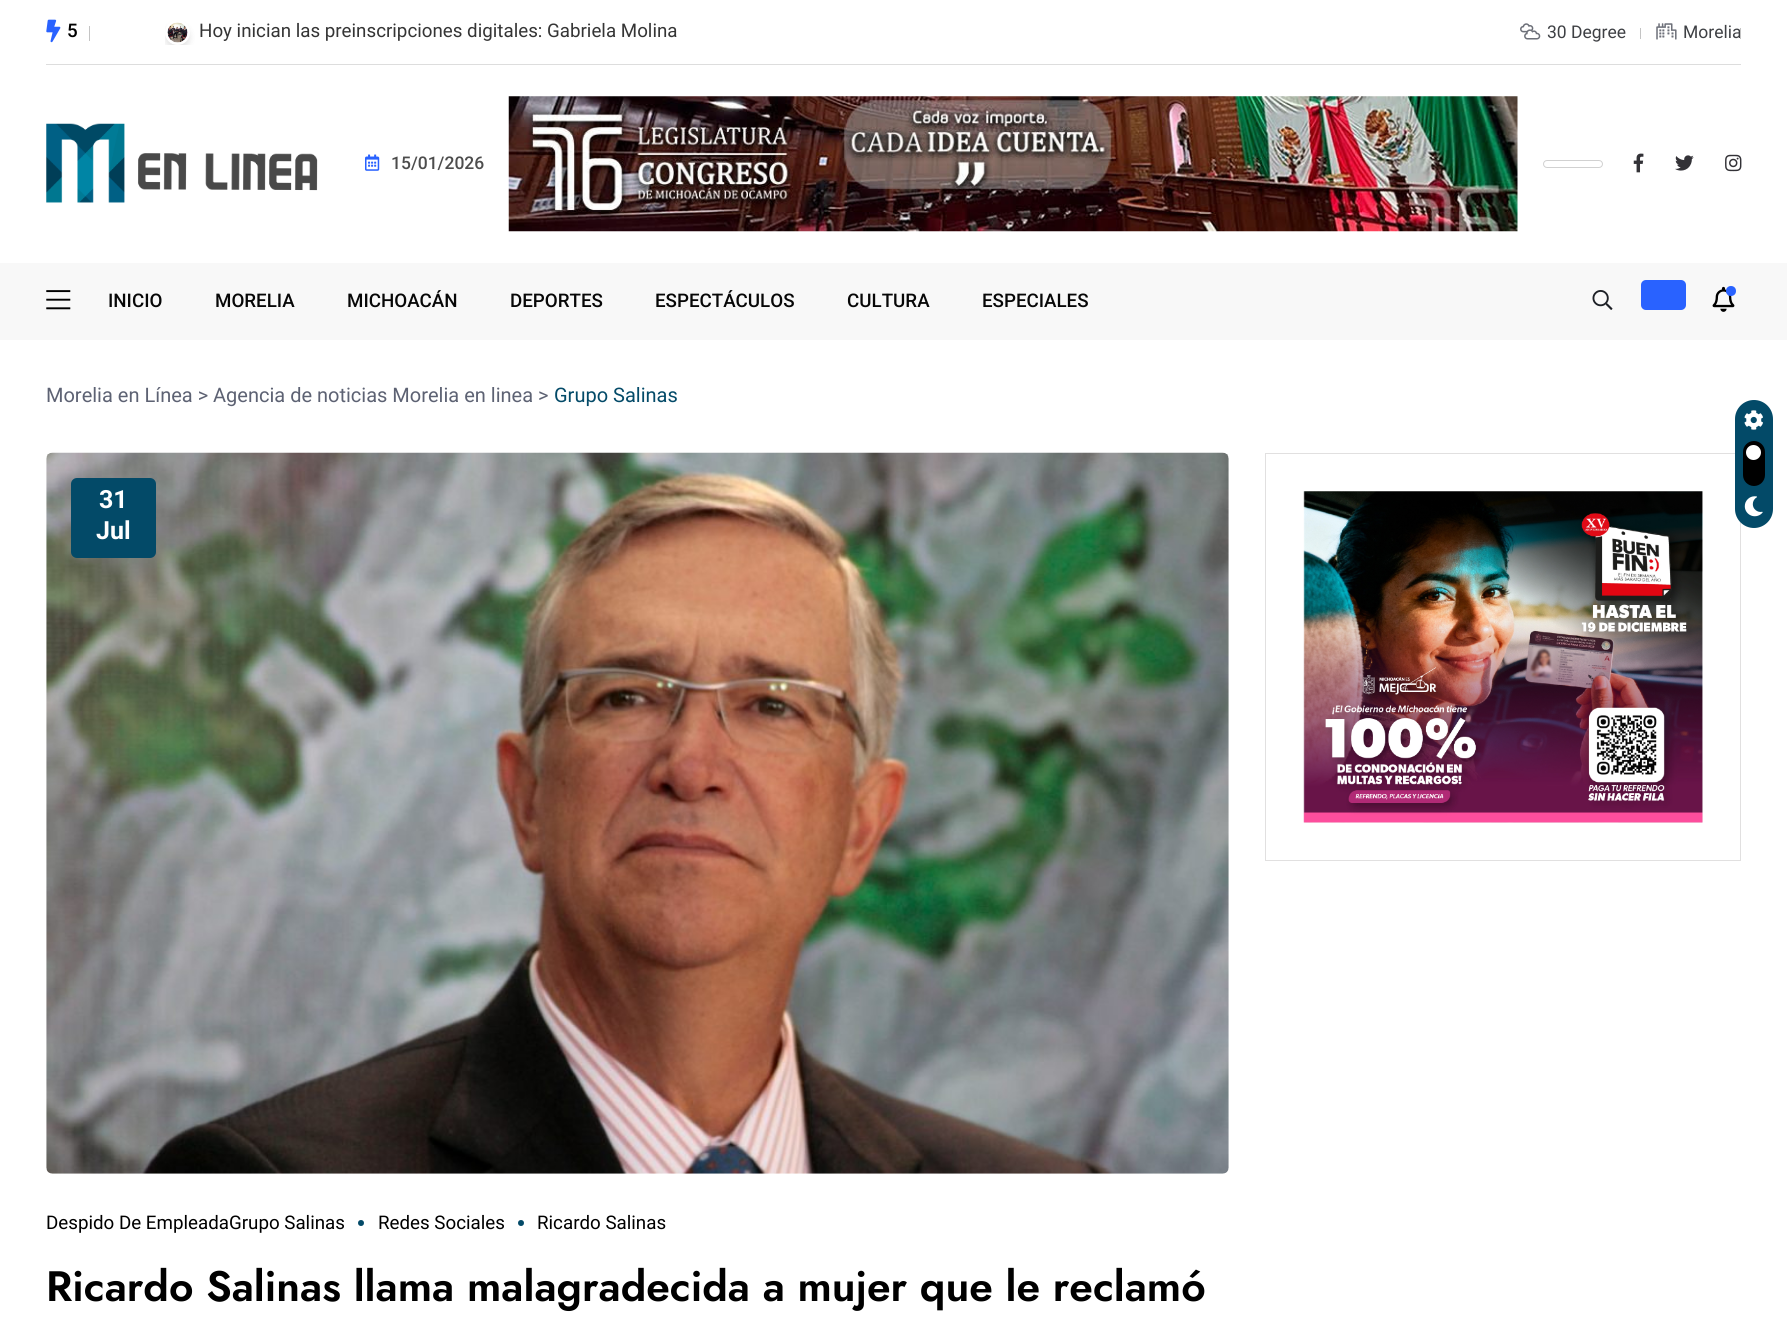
#include <cairo/cairo.h>
#include <math.h>
#include <stddef.h>

static cairo_t *cr;

static void use_color(int r, int g, int b) {
  cairo_set_source_rgb(cr, r / 255.0, g / 255.0, b / 255.0);
}

static void text(double x, double y, const char *s, const char *family, double size, int italic, int bold, int r, int g, int b) {
  cairo_select_font_face(cr, family, italic ? CAIRO_FONT_SLANT_ITALIC : CAIRO_FONT_SLANT_NORMAL,
    bold ? CAIRO_FONT_WEIGHT_BOLD : CAIRO_FONT_WEIGHT_NORMAL);
  cairo_set_font_size(cr, size);
  use_color(r, g, b);
  cairo_move_to(cr, x, y);
  cairo_show_text(cr, s);
}

static void box(double x, double y, double w, double h, int r, int g, int b) {
  use_color(r, g, b);
  cairo_rectangle(cr, x, y, w, h);
  cairo_fill(cr);
}

static void round_rect(double x, double y, double w, double h, double r) {
  cairo_new_sub_path(cr);
  cairo_arc(cr, x + w - r, y + h - r, r, 0, M_PI / 2);
  cairo_arc(cr, x + r, y + h - r, r, M_PI / 2, M_PI);
  cairo_arc(cr, x + r, y + r, r, M_PI, 1.5 * M_PI);
  cairo_arc(cr, x + w - r, y + r, r, 1.5 * M_PI, 2 * M_PI);
  cairo_close_path(cr);
}

static void shadow(double x, double y, double w, double h, double r, double blur, double alpha) {
  cairo_push_group_with_content(cr, CAIRO_CONTENT_ALPHA);
  cairo_set_operator(cr, CAIRO_OPERATOR_SOURCE);
  for (int i = 15; i >= -15 && fmin(w, h) + blur * i / 3 > 0; i -= 2) {
    double e = blur * i / 6;
    cairo_set_source_rgba(cr, 0, 0, 0, alpha * erfc((i - 1) / 8.5) / 2);
    round_rect(x - e, y - e, w + 2 * e, h + 2 * e, fmax(0, fmin(r + e + blur * .6, fmin(w, h) / 2 + e)));
    cairo_fill(cr);
  }
  cairo_pattern_t *soft = cairo_pop_group(cr);
  cairo_mask(cr, soft);
  cairo_pattern_destroy(soft);
}

static void picture(const char *path, double x, double y, double w, double h) {
  cairo_surface_t *image = cairo_image_surface_create_from_png(path);
  cairo_save(cr);
  cairo_set_source_surface(cr, image, x, y);
  cairo_rectangle(cr, x, y, w, h);
  cairo_fill(cr);
  cairo_restore(cr);
  cairo_surface_destroy(image);
}

static void draw(void) {
  use_color(255, 255, 255);
  cairo_paint(cr);
  box(46, 64, 1695, 1, 221, 221, 221);
  picture("img_01.png", 46, 19, 15, 24);
  box(89, 26, 1, 15, 196, 196, 196);
  cairo_save(cr);
  cairo_rectangle(cr, 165, 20, 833, 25);
  cairo_clip(cr);
  use_color(0, 0, 0);
  shadow(165, 25, 25, 25, 12.5, 3, 0.1);
  cairo_restore(cr);
  use_color(255, 255, 255);
  cairo_arc(cr, 177.5, 32.5, 12.5, 0, 2 * M_PI);
  cairo_fill(cr);
  picture("img_02.png", 167, 22, 21, 21);
  picture("img_03.png", 1520, 23, 21, 17);
  box(1640, 28, 1, 11, 196, 196, 196);
  picture("img_04.png", 1656, 23, 21, 17);
  picture("img_05.png", 46, 123, 272, 80);
  picture("img_06.png", 365, 154, 15, 17);
  picture("img_07.png", 508, 96, 1010, 136);
  round_rect(1543.5, 160.5, 59, 7, 3.5);
  use_color(209, 209, 209);
  cairo_set_line_width(cr, 1);
  cairo_stroke(cr);
  picture("img_08.png", 1633, 153, 11, 20);
  picture("img_09.png", 1675, 155, 19, 16);
  picture("img_10.png", 1725, 154, 17, 18);
  box(0, 263, 1787, 77, 248, 248, 248);
  picture("img_11.png", 46, 290, 25, 20);
  picture("img_12.png", 1592, 290, 21, 20);
  use_color(41, 98, 255);
  round_rect(1641, 280, 45, 30, 5);
  cairo_fill(cr);
  picture("img_13.png", 1712, 286, 23, 26);
  cairo_arc(cr, 1731, 291, 5, 0, 2 * M_PI);
  cairo_fill(cr);
  cairo_rectangle(cr, 1265.5, 453.5, 475, 407);
  use_color(225, 224, 224);
  cairo_stroke(cr);
  use_color(3, 74, 104);
  round_rect(1735, 400, 38, 128, 19);
  cairo_fill(cr);
  picture("img_14.png", 1744, 410, 19, 20);
  use_color(0, 0, 0);
  round_rect(1743, 441, 22, 45, 11);
  cairo_fill(cr);
  use_color(255, 255, 255);
  cairo_arc(cr, 1753.5, 452.5, 7.5, 0, 2 * M_PI);
  cairo_fill(cr);
  picture("img_15.png", 1744, 496, 19, 21);
  picture("img_16.png", 46, 452, 1183, 722);
  use_color(3, 74, 104);
  round_rect(71, 478, 85, 80, 6);
  cairo_fill(cr);
  cairo_arc(cr, 361, 1223, 3, 0, 2 * M_PI);
  cairo_fill(cr);
  cairo_arc(cr, 521, 1223, 3, 0, 2 * M_PI);
  cairo_fill(cr);
  picture("img_17.png", 1303, 491, 400, 332);
  text(67, 37, "5", "Roboto Medium", 18.75, 0, 0, 0, 0, 0);
  text(199, 37, "Hoy inician las preinscripciones digitales: Gabriela Molina", "Roboto", 18.75, 0, 0, 53, 53, 53);
  text(1547, 38, "30 Degree", "Roboto", 17.5, 0, 0, 62, 64, 68);
  text(1683, 38, "Morelia", "Roboto", 17.5, 0, 0, 62, 64, 68);
  box(1740, 28, 1, 11, 196, 196, 196);
  text(391, 169, "15/01/2026", "Roboto Medium", 17.5, 0, 0, 77, 77, 77);
  text(108, 307, "INICIO", "Roboto Medium", 18.75, 0, 0, 7, 7, 7);
  text(215, 307, "MORELIA", "Roboto Medium", 18.75, 0, 0, 7, 7, 7);
  text(347, 307, "MICHOACÁN", "Roboto Medium", 18.75, 0, 0, 7, 7, 7);
  text(510, 307, "DEPORTES", "Roboto Medium", 18.75, 0, 0, 7, 7, 7);
  text(655, 307, "ESPECTÁCULOS", "Roboto Medium", 18.75, 0, 0, 7, 7, 7);
  text(847, 307, "CULTURA", "Roboto Medium", 18.75, 0, 0, 7, 7, 7);
  text(982, 307, "ESPECIALES", "Roboto Medium", 18.75, 0, 0, 7, 7, 7);
  text(46, 402, "Morelia en Línea > Agencia de noticias Morelia en linea >", "Roboto", 20, 0, 0, 93, 98, 115);
  text(554, 402, "Grupo Salinas", "Roboto", 20, 0, 0, 3, 74, 104);
  text(99, 508, "31", "Roboto", 25, 0, 1, 255, 255, 255);
  text(96, 539, "Jul", "Roboto", 25, 0, 1, 255, 255, 255);
  text(46, 1229, "Despido De EmpleadaGrupo Salinas", "Roboto", 18.75, 0, 0, 0, 0, 0);
  text(378, 1229, "Redes Sociales", "Roboto", 18.75, 0, 0, 0, 0, 0);
  text(537, 1229, "Ricardo Salinas", "Roboto", 18.75, 0, 0, 0, 0, 0);
  text(46, 1301, "Ricardo Salinas llama malagradecida a mujer que le reclamó", "Jost SemiBold", 42.5, 0, 0, 0, 0, 0);
}

int main(void) {
  cairo_surface_t *surface = cairo_image_surface_create(CAIRO_FORMAT_RGB24, 1787, 1322);
  cr = cairo_create(surface);
  cairo_font_options_t *options = cairo_font_options_create();
  cairo_font_options_set_hint_metrics(options, CAIRO_HINT_METRICS_OFF);
  cairo_font_options_set_hint_style(options, CAIRO_HINT_STYLE_NONE);
  cairo_set_font_options(cr, options);
  cairo_set_miter_limit(cr, 4);
  draw();
  cairo_surface_write_to_png(surface, "out.png");
  cairo_font_options_destroy(options);
  cairo_destroy(cr);
  cairo_surface_destroy(surface);
  return 0;
}
